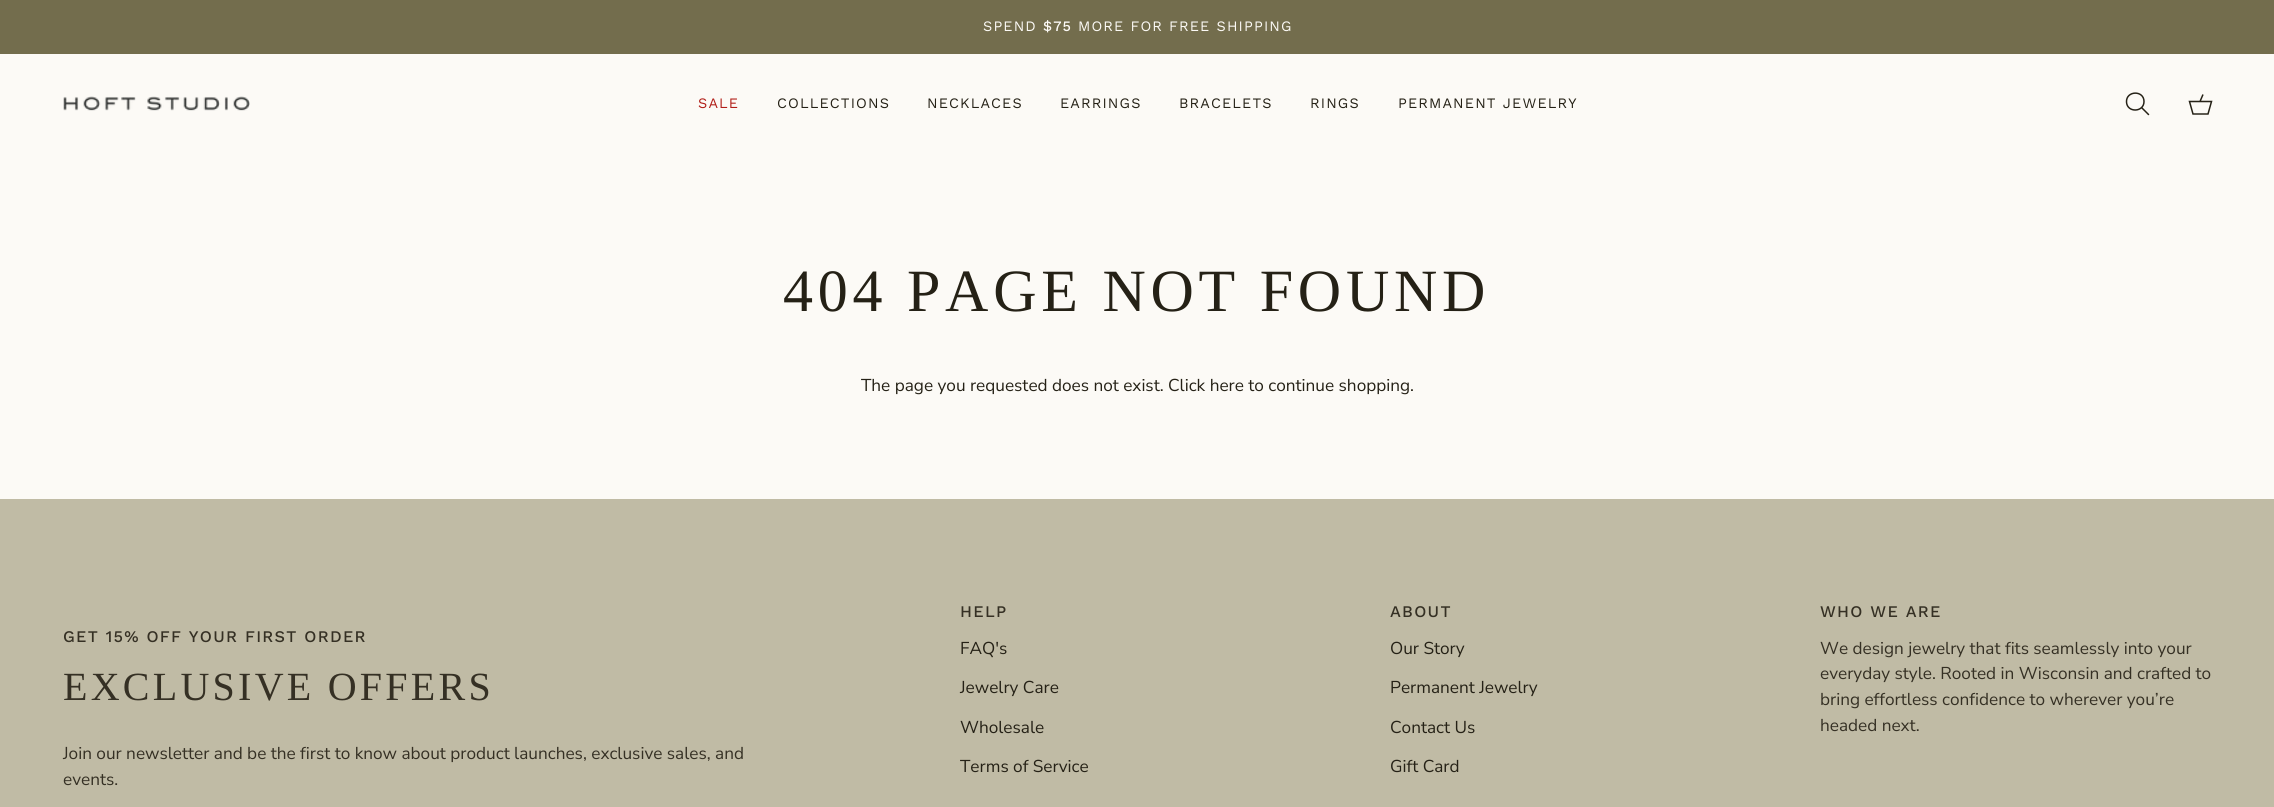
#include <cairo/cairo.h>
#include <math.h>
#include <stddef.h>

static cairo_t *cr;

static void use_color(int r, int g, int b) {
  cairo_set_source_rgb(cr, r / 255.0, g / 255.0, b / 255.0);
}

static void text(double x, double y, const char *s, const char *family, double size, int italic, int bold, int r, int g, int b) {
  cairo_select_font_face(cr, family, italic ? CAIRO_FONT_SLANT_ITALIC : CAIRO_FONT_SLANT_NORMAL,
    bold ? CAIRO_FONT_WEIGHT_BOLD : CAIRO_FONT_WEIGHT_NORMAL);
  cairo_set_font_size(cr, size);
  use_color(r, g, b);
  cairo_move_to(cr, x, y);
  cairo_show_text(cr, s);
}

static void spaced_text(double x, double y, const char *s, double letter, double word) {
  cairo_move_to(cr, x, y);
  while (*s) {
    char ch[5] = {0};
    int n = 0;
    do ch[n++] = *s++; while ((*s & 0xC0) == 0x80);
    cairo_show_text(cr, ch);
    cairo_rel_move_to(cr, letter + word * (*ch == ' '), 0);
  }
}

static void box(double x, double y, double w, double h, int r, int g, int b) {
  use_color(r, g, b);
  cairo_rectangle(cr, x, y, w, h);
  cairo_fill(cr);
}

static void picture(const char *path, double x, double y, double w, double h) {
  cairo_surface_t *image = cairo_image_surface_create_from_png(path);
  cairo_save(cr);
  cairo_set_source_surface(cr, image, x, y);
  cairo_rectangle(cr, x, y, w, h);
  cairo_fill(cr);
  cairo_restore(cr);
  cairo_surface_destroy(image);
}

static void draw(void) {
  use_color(252, 250, 246);
  cairo_paint(cr);
  box(0, 0, 2274, 54, 115, 109, 77);
  picture("img_01.png", 63, 96, 187, 15);
  cairo_new_path(cr);
  cairo_move_to(cr, 2144, 101.5);
  cairo_curve_to(cr, 2144, 112.5, 2127, 113, 2126.5, 102);
  cairo_curve_to(cr, 2126, 90.5, 2144, 90, 2144, 101.5);
  cairo_close_path(cr);
  cairo_move_to(cr, 2148.5, 114.5);
  cairo_line_to(cr, 2141.5, 107.5);
  cairo_close_path(cr);
  use_color(37, 33, 22);
  cairo_set_line_width(cr, 1.5);
  cairo_set_line_cap(cr, CAIRO_LINE_CAP_ROUND);
  cairo_set_line_join(cr, CAIRO_LINE_JOIN_ROUND);
  cairo_stroke(cr);
  cairo_new_path(cr);
  cairo_move_to(cr, 2189.5, 101.5);
  cairo_line_to(cr, 2211.5, 101.5);
  cairo_line_to(cr, 2208, 114);
  cairo_line_to(cr, 2193, 114);
  cairo_close_path(cr);
  cairo_move_to(cr, 2203, 94.5);
  cairo_line_to(cr, 2200, 101.5);
  cairo_set_line_cap(cr, CAIRO_LINE_CAP_BUTT);
  cairo_set_line_join(cr, CAIRO_LINE_JOIN_MITER);
  cairo_stroke(cr);
  box(0, 499, 2274, 308, 192, 187, 165);
  cairo_select_font_face(cr, "Work Sans", CAIRO_FONT_SLANT_NORMAL, CAIRO_FONT_WEIGHT_NORMAL);
  cairo_set_font_size(cr, 14.4);
  use_color(252, 250, 246);
  spaced_text(983, 31, "SPEND", 1.15, 0);
  cairo_select_font_face(cr, "Work Sans Medium", CAIRO_FONT_SLANT_NORMAL, CAIRO_FONT_WEIGHT_NORMAL);
  spaced_text(1043, 31, "$75", 1.15, 0);
  cairo_select_font_face(cr, "Work Sans", CAIRO_FONT_SLANT_NORMAL, CAIRO_FONT_WEIGHT_NORMAL);
  spaced_text(1078, 31, "MORE FOR FREE SHIPPING", 1.15, 0);
  use_color(177, 30, 24);
  spaced_text(698, 108, "SALE", 1.15, 0);
  use_color(37, 33, 22);
  spaced_text(777, 108, "COLLECTIONS", 1.15, 0);
  spaced_text(927, 108, "NECKLACES", 1.15, 0);
  spaced_text(1060, 108, "EARRINGS", 1.15, 0);
  spaced_text(1179, 108, "BRACELETS", 1.15, 0);
  spaced_text(1310, 108, "RINGS", 1.15, 0);
  spaced_text(1398, 108, "PERMANENT JEWELRY", 1.15, 0);
  cairo_select_font_face(cr, "Liberation Serif", CAIRO_FONT_SLANT_NORMAL, CAIRO_FONT_WEIGHT_NORMAL);
  cairo_set_font_size(cr, 60);
  spaced_text(783, 311, "404 PAGE NOT FOUND", 4.75, 0);
  text(861, 391, "The page you requested does not exist. Click here to continue shopping.", "Nunito Sans", 17.2, 0, 0, 37, 33, 22);
  cairo_select_font_face(cr, "Work Sans Medium", CAIRO_FONT_SLANT_NORMAL, CAIRO_FONT_WEIGHT_NORMAL);
  cairo_set_font_size(cr, 16.25);
  use_color(53, 48, 36);
  spaced_text(63, 642, "GET 15% OFF YOUR FIRST ORDER", 1.3, 0);
  cairo_select_font_face(cr, "Liberation Serif", CAIRO_FONT_SLANT_NORMAL, CAIRO_FONT_WEIGHT_NORMAL);
  cairo_set_font_size(cr, 40);
  spaced_text(63, 700, "EXCLUSIVE OFFERS", 3.25, 0);
  text(63, 759, "Join our newsletter and be the first to know about product launches, exclusive sales, and", "Nunito Sans", 17.2, 0, 0, 53, 48, 36);
  text(63, 785, "events.", "Nunito Sans", 17.2, 0, 0, 53, 48, 36);
  cairo_select_font_face(cr, "Work Sans Medium", CAIRO_FONT_SLANT_NORMAL, CAIRO_FONT_WEIGHT_NORMAL);
  cairo_set_font_size(cr, 16.25);
  spaced_text(960, 617, "HELP", 1.3, 0);
  text(960, 654, "FAQ's", "Nunito Sans", 17.2, 0, 0, 37, 33, 22);
  text(960, 693, "Jewelry Care", "Nunito Sans", 17.2, 0, 0, 37, 33, 22);
  text(960, 733, "Wholesale", "Nunito Sans", 17.2, 0, 0, 37, 33, 22);
  text(960, 772, "Terms of Service", "Nunito Sans", 17.2, 0, 0, 37, 33, 22);
  cairo_select_font_face(cr, "Work Sans Medium", CAIRO_FONT_SLANT_NORMAL, CAIRO_FONT_WEIGHT_NORMAL);
  cairo_set_font_size(cr, 16.25);
  use_color(53, 48, 36);
  spaced_text(1390, 617, "ABOUT", 1.3, 0);
  text(1390, 654, "Our Story", "Nunito Sans", 17.2, 0, 0, 37, 33, 22);
  text(1390, 693, "Permanent Jewelry", "Nunito Sans", 17.2, 0, 0, 37, 33, 22);
  text(1390, 733, "Contact Us", "Nunito Sans", 17.2, 0, 0, 37, 33, 22);
  text(1390, 772, "Gift Card", "Nunito Sans", 17.2, 0, 0, 37, 33, 22);
  cairo_select_font_face(cr, "Work Sans Medium", CAIRO_FONT_SLANT_NORMAL, CAIRO_FONT_WEIGHT_NORMAL);
  cairo_set_font_size(cr, 16.25);
  use_color(53, 48, 36);
  spaced_text(1820, 617, "WHO WE ARE", 1.3, 0);
  text(1820, 654, "We design jewelry that fits seamlessly into your", "Nunito Sans", 17.2, 0, 0, 53, 48, 36);
  text(1820, 679, "everyday style. Rooted in Wisconsin and crafted to", "Nunito Sans", 17.2, 0, 0, 53, 48, 36);
  text(1820, 705, "bring effortless confidence to wherever you’re", "Nunito Sans", 17.2, 0, 0, 53, 48, 36);
  text(1820, 731, "headed next.", "Nunito Sans", 17.2, 0, 0, 53, 48, 36);
}

int main(void) {
  cairo_surface_t *surface = cairo_image_surface_create(CAIRO_FORMAT_RGB24, 2274, 807);
  cr = cairo_create(surface);
  cairo_font_options_t *options = cairo_font_options_create();
  cairo_font_options_set_hint_metrics(options, CAIRO_HINT_METRICS_OFF);
  cairo_font_options_set_hint_style(options, CAIRO_HINT_STYLE_NONE);
  cairo_set_font_options(cr, options);
  cairo_set_miter_limit(cr, 4);
  draw();
  cairo_surface_write_to_png(surface, "out.png");
  cairo_font_options_destroy(options);
  cairo_destroy(cr);
  cairo_surface_destroy(surface);
  return 0;
}
